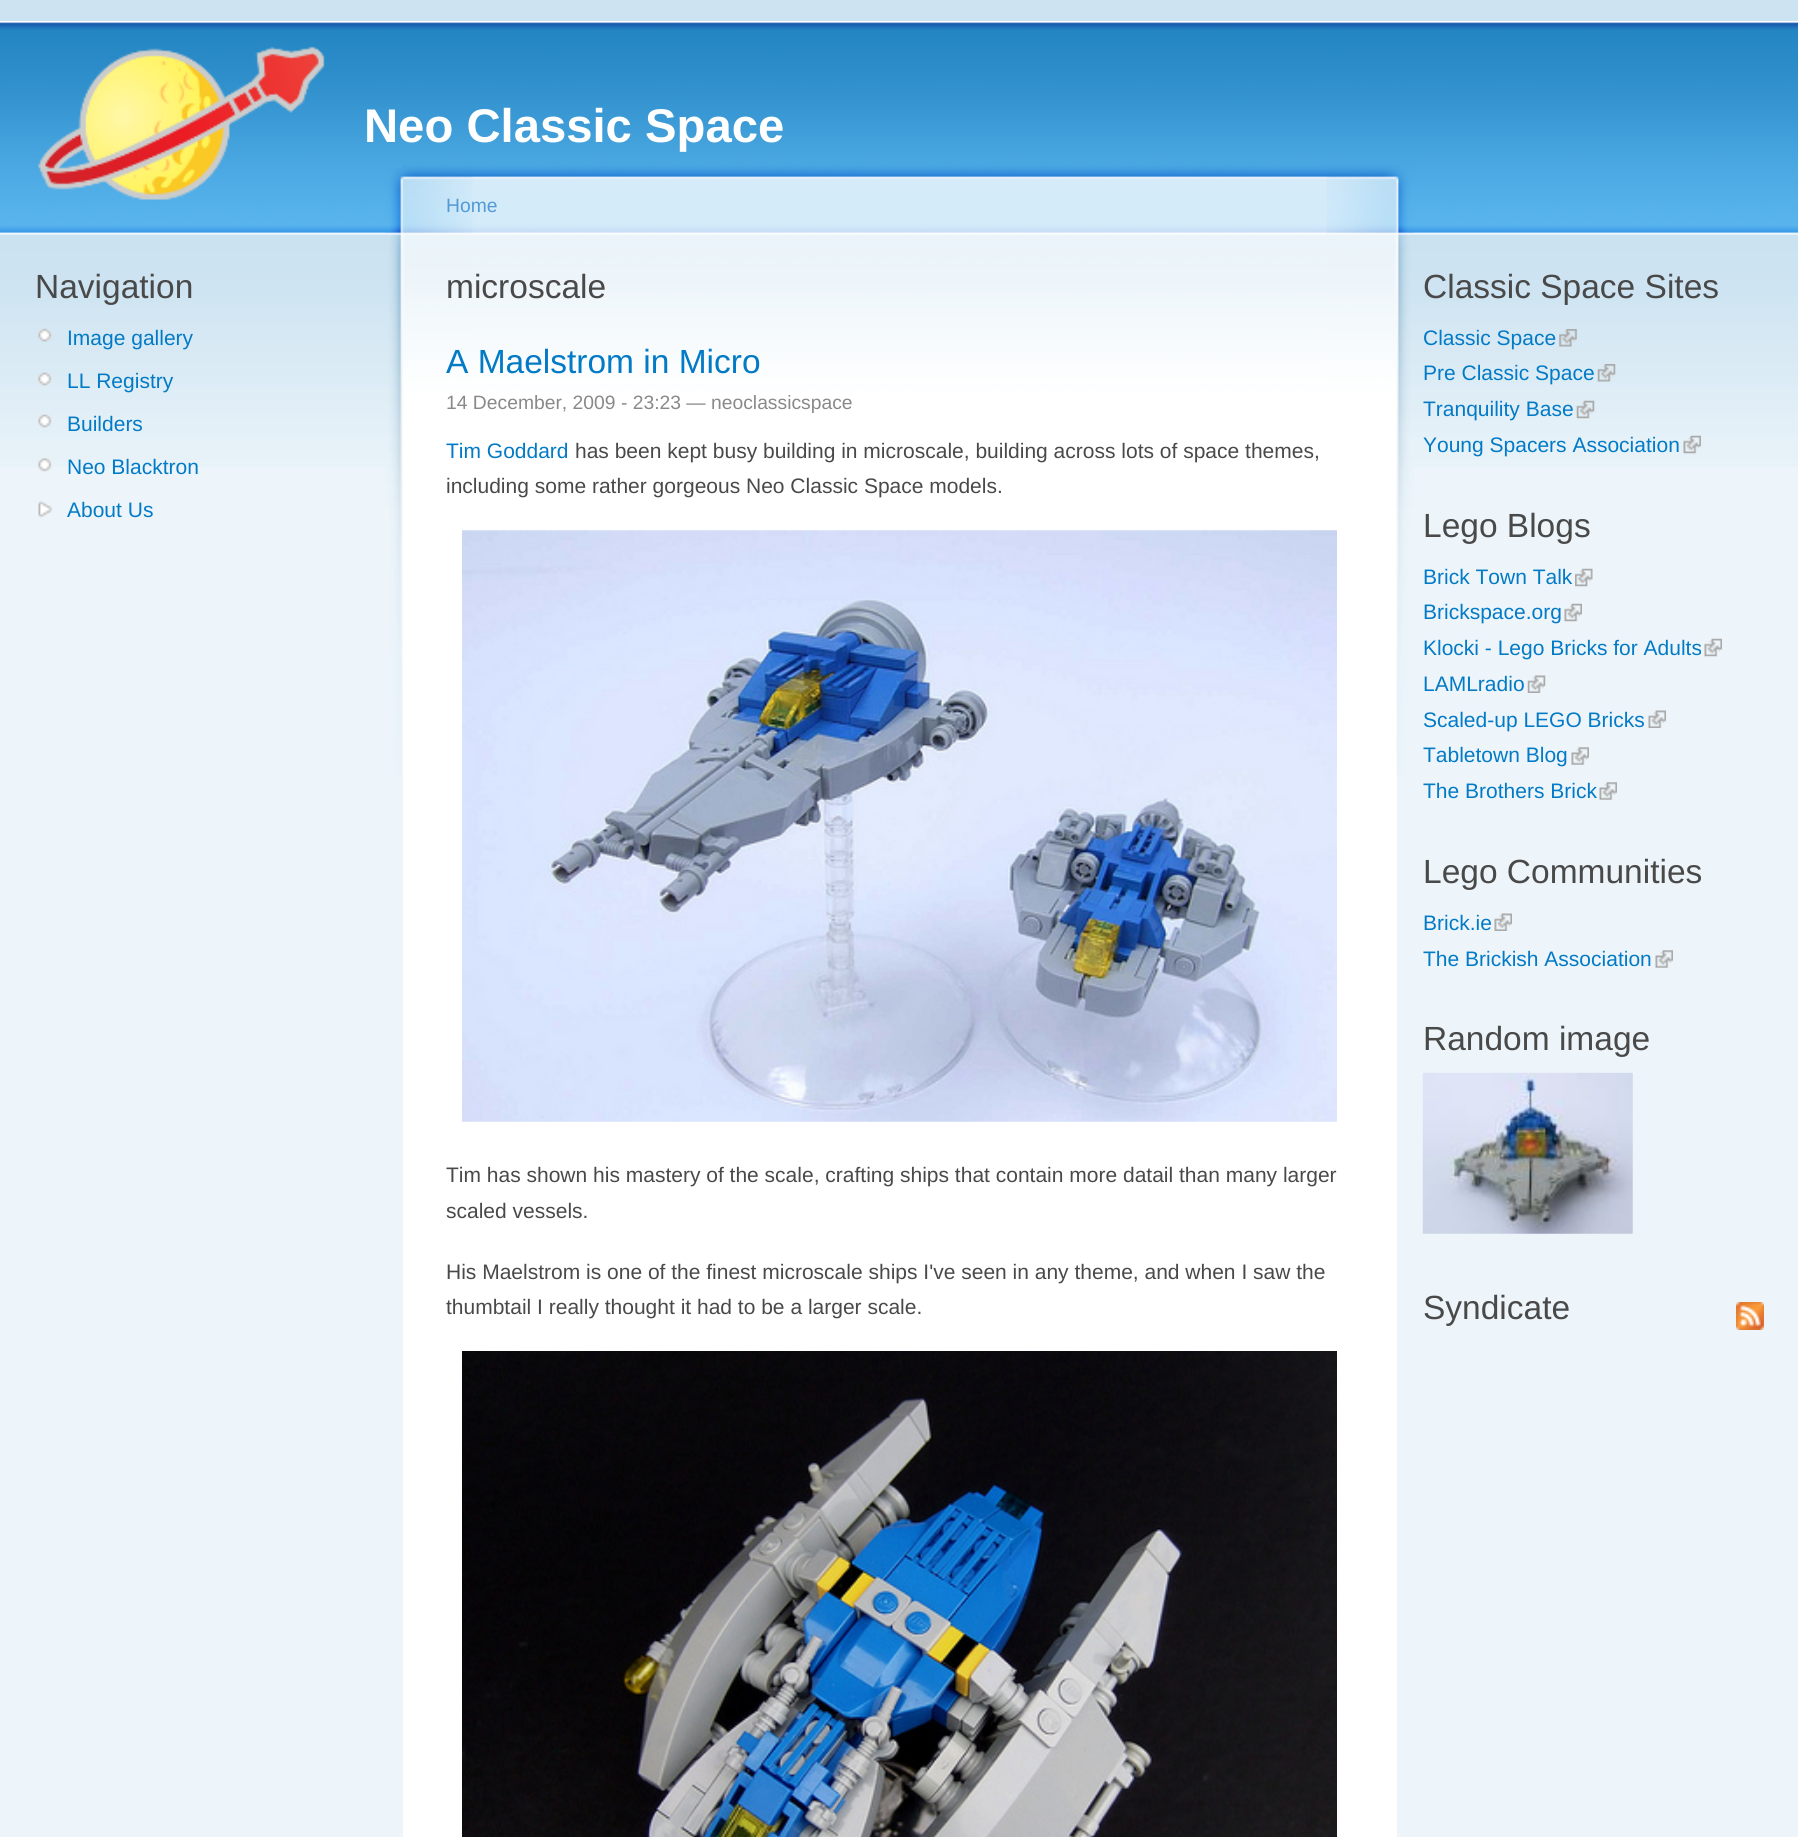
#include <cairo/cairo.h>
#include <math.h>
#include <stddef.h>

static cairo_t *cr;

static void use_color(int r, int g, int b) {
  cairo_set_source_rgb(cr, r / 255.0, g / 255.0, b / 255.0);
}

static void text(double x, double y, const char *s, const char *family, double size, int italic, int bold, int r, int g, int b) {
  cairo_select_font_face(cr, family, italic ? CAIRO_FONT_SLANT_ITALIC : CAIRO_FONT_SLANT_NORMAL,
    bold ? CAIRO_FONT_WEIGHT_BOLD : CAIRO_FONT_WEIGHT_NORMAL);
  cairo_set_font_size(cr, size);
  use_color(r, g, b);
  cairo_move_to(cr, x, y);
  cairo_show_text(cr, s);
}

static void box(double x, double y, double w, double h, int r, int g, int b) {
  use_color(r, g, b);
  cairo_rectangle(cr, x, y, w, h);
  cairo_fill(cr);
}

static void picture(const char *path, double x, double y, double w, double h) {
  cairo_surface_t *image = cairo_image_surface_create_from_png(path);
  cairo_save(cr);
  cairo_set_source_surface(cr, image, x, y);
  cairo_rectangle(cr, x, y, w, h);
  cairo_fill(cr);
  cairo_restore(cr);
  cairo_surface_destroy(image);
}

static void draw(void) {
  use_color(237, 245, 250);
  cairo_paint(cr);
  box(0, 0, 1798, 21, 205, 227, 241);
  picture("img_01.png", 0, 21, 1798, 446);
  picture("img_02.png", 38, 46, 287, 154);
  picture("img_03.png", 38, 328, 14, 14);
  picture("img_04.png", 38, 372, 14, 14);
  picture("img_05.png", 38, 414, 14, 14);
  picture("img_06.png", 38, 458, 14, 14);
  picture("img_07.png", 38, 500, 15, 18);
  box(403, 511, 994, 1326, 255, 255, 255);
  picture("img_08.png", 402, 161, 925, 350);
  picture("img_09.png", 1326, 161, 88, 616);
  picture("img_10.png", 385, 168, 88, 609);
  picture("img_11.png", 462, 530, 875, 592);
  picture("img_12.png", 462, 1351, 875, 486);
  picture("img_13.png", 1559, 329, 18, 18);
  picture("img_14.png", 1597, 364, 19, 18);
  picture("img_15.png", 1576, 400, 19, 19);
  picture("img_16.png", 1683, 435, 18, 19);
  picture("img_17.png", 1575, 568, 18, 19);
  picture("img_18.png", 1564, 603, 18, 19);
  picture("img_19.png", 1704, 638, 18, 19);
  picture("img_20.png", 1527, 675, 19, 18);
  picture("img_21.png", 1648, 710, 18, 18);
  picture("img_22.png", 1571, 747, 18, 18);
  picture("img_23.png", 1599, 782, 18, 18);
  picture("img_21.png", 1494, 913, 18, 18);
  picture("img_23.png", 1655, 950, 18, 18);
  picture("img_24.png", 1422, 1072, 211, 162);
  picture("img_25.png", 1736, 1302, 28, 28);
  text(364, 142, "Neo Classic Space", "Liberation Sans", 47.25, 0, 1, 255, 255, 255);
  text(35, 298, "Navigation", "Liberation Sans", 33.5, 0, 0, 73, 73, 73);
  text(67, 345, "Image gallery", "Liberation Sans", 21, 0, 0, 2, 122, 198);
  text(67, 388, "LL Registry", "Liberation Sans", 21, 0, 0, 2, 122, 198);
  text(67, 431, "Builders", "Liberation Sans", 21, 0, 0, 2, 122, 198);
  text(67, 474, "Neo Blacktron", "Liberation Sans", 21, 0, 0, 2, 122, 198);
  text(67, 517, "About Us", "Liberation Sans", 21, 0, 0, 2, 122, 198);
  text(446, 212, "Home", "Liberation Sans", 19.3, 0, 0, 82, 154, 214);
  text(446, 298, "microscale", "Liberation Sans", 33.5, 0, 0, 73, 73, 73);
  text(446, 373, "A Maelstrom in Micro", "Liberation Sans", 33.5, 0, 0, 2, 122, 198);
  text(446, 409, "14 December, 2009 - 23:23 — neoclassicspace", "Liberation Sans", 19.3, 0, 0, 137, 137, 137);
  text(446, 458, "Tim Goddard", "Liberation Sans", 21, 0, 0, 2, 122, 198);
  text(575, 458, "has been kept busy building in microscale, building across lots of space themes,", "Liberation Sans", 21, 0, 0, 73, 73, 73);
  text(446, 493, "including some rather gorgeous Neo Classic Space models.", "Liberation Sans", 21, 0, 0, 73, 73, 73);
  text(446, 1182, "Tim has shown his mastery of the scale, crafting ships that contain more datail than many larger", "Liberation Sans", 21, 0, 0, 73, 73, 73);
  text(446, 1218, "scaled vessels.", "Liberation Sans", 21, 0, 0, 73, 73, 73);
  text(446, 1279, "His Maelstrom is one of the finest microscale ships I've seen in any theme, and when I saw the", "Liberation Sans", 21, 0, 0, 73, 73, 73);
  text(446, 1314, "thumbtail I really thought it had to be a larger scale.", "Liberation Sans", 21, 0, 0, 73, 73, 73);
  text(1423, 298, "Classic Space Sites", "Liberation Sans", 33.5, 0, 0, 73, 73, 73);
  text(1423, 345, "Classic Space", "Liberation Sans", 21, 0, 0, 2, 122, 198);
  text(1423, 380, "Pre Classic Space", "Liberation Sans", 21, 0, 0, 2, 122, 198);
  text(1423, 416, "Tranquility Base", "Liberation Sans", 21, 0, 0, 2, 122, 198);
  text(1423, 452, "Young Spacers Association", "Liberation Sans", 21, 0, 0, 2, 122, 198);
  text(1423, 537, "Lego Blogs", "Liberation Sans", 33.5, 0, 0, 73, 73, 73);
  text(1423, 584, "Brick Town Talk", "Liberation Sans", 21, 0, 0, 2, 122, 198);
  text(1423, 619, "Brickspace.org", "Liberation Sans", 21, 0, 0, 2, 122, 198);
  text(1423, 655, "Klocki - Lego Bricks for Adults", "Liberation Sans", 21, 0, 0, 2, 122, 198);
  text(1423, 691, "LAMLradio", "Liberation Sans", 21, 0, 0, 2, 122, 198);
  text(1423, 727, "Scaled-up LEGO Bricks", "Liberation Sans", 21, 0, 0, 2, 122, 198);
  text(1423, 762, "Tabletown Blog", "Liberation Sans", 21, 0, 0, 2, 122, 198);
  text(1423, 798, "The Brothers Brick", "Liberation Sans", 21, 0, 0, 2, 122, 198);
  text(1423, 883, "Lego Communities", "Liberation Sans", 33.5, 0, 0, 73, 73, 73);
  text(1423, 930, "Brick.ie", "Liberation Sans", 21, 0, 0, 2, 122, 198);
  text(1423, 966, "The Brickish Association", "Liberation Sans", 21, 0, 0, 2, 122, 198);
  text(1423, 1050, "Random image", "Liberation Sans", 33.5, 0, 0, 73, 73, 73);
  text(1423, 1319, "Syndicate", "Liberation Sans", 33.5, 0, 0, 73, 73, 73);
}

int main(void) {
  cairo_surface_t *surface = cairo_image_surface_create(CAIRO_FORMAT_RGB24, 1798, 1837);
  cr = cairo_create(surface);
  cairo_font_options_t *options = cairo_font_options_create();
  cairo_font_options_set_hint_metrics(options, CAIRO_HINT_METRICS_OFF);
  cairo_font_options_set_hint_style(options, CAIRO_HINT_STYLE_NONE);
  cairo_set_font_options(cr, options);
  cairo_set_miter_limit(cr, 4);
  draw();
  cairo_surface_write_to_png(surface, "out.png");
  cairo_font_options_destroy(options);
  cairo_destroy(cr);
  cairo_surface_destroy(surface);
  return 0;
}
